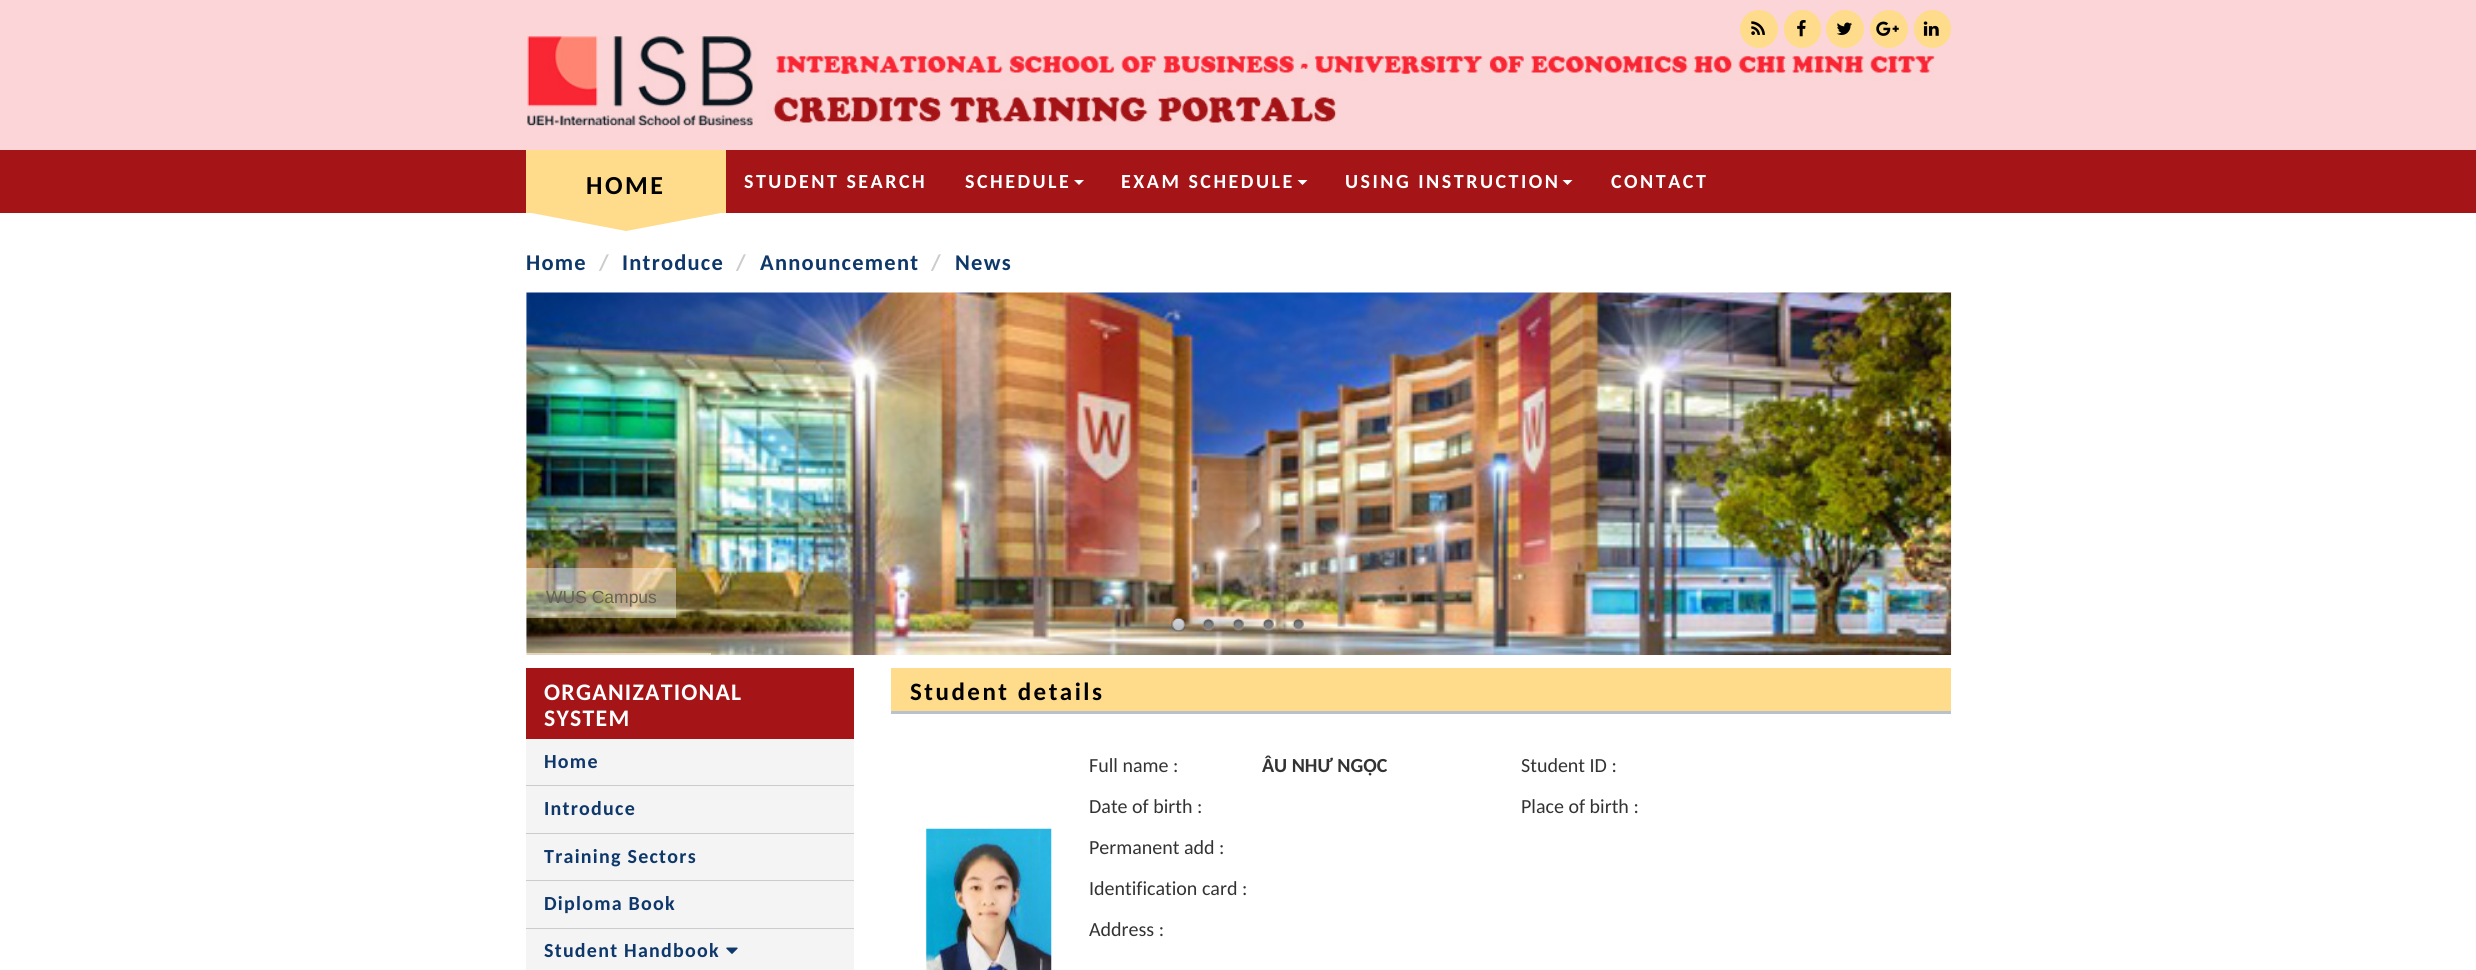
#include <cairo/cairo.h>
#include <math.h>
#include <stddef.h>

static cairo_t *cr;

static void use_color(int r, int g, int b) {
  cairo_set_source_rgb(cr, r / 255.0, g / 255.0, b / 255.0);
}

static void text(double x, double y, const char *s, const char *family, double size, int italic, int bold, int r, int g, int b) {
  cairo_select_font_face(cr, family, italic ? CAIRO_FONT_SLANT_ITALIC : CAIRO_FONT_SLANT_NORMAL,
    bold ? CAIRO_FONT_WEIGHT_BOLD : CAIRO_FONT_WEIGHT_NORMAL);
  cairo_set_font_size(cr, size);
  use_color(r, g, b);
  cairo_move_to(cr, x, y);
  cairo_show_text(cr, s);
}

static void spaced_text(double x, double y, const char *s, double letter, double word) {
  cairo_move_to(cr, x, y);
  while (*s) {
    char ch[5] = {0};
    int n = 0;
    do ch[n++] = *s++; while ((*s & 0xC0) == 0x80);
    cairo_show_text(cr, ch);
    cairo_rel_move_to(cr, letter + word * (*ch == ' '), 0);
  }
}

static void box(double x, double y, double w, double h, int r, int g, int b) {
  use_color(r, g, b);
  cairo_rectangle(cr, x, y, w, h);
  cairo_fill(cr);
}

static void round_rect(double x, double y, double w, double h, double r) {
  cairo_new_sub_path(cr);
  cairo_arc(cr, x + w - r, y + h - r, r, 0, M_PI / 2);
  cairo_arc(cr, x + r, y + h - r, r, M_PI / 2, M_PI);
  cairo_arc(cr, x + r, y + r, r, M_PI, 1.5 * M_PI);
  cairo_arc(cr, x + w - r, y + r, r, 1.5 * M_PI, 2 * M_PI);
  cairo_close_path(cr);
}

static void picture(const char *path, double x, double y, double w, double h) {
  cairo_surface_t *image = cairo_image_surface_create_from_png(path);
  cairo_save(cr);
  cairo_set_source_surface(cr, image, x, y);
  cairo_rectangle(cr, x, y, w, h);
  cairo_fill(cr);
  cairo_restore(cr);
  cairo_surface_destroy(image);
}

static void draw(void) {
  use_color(255, 255, 255);
  cairo_paint(cr);
  box(0, 0, 2476, 150, 251, 213, 215);
  picture("img_01.png", 527, 36, 1408, 90);
  use_color(254, 220, 139);
  cairo_arc(cr, 1759, 29, 19, 0, 2 * M_PI);
  cairo_fill(cr);
  picture("img_02.png", 1751, 21, 14, 14);
  round_rect(1784, 10, 37, 38, 18.5);
  cairo_fill(cr);
  picture("img_03.png", 1797, 20, 9, 17);
  cairo_arc(cr, 1845, 29, 19, 0, 2 * M_PI);
  cairo_fill(cr);
  picture("img_04.png", 1836, 22, 16, 13);
  cairo_arc(cr, 1889, 29, 19, 0, 2 * M_PI);
  cairo_fill(cr);
  picture("img_05.png", 1876, 21, 23, 15);
  round_rect(1914, 10, 37, 38, 18.5);
  cairo_fill(cr);
  picture("img_06.png", 1923, 21, 16, 15);
  box(0, 150, 2476, 63, 165, 20, 23);
  box(526, 150, 200, 63, 254, 220, 139);
  cairo_new_path(cr);
  cairo_move_to(cr, 526, 212);
  cairo_line_to(cr, 726, 212);
  cairo_line_to(cr, 626, 231);
  cairo_close_path(cr);
  cairo_fill(cr);
  use_color(255, 255, 255);
  cairo_new_path(cr);
  cairo_move_to(cr, 1074, 180);
  cairo_line_to(cr, 1084, 180);
  cairo_line_to(cr, 1079, 185);
  cairo_close_path(cr);
  cairo_fill(cr);
  cairo_new_path(cr);
  cairo_move_to(cr, 1297.5, 180);
  cairo_line_to(cr, 1307.5, 180);
  cairo_line_to(cr, 1302.5, 185);
  cairo_close_path(cr);
  cairo_fill(cr);
  cairo_new_path(cr);
  cairo_move_to(cr, 1562.5, 180);
  cairo_line_to(cr, 1572.5, 180);
  cairo_line_to(cr, 1567.5, 185);
  cairo_close_path(cr);
  cairo_fill(cr);
  picture("img_07.png", 526, 292, 1426, 363);
  cairo_set_source_rgba(cr, 1, 1, 1, 0.41);
  cairo_rectangle(cr, 526, 568, 150, 50);
  cairo_fill(cr);
  cairo_set_source_rgba(cr, 1, 1, 1, 0.6);
  cairo_rectangle(cr, 526, 653, 185, 2);
  cairo_fill(cr);
  picture("img_08.png", 1171, 617, 16, 16);
  picture("img_09.png", 1202, 618, 12, 14);
  picture("img_10.png", 1232, 618, 12, 14);
  picture("img_11.png", 1262, 618, 12, 14);
  picture("img_12.png", 1292, 618, 12, 14);
  box(526, 668, 328, 71, 165, 20, 23);
  box(526, 739, 328, 46, 244, 244, 244);
  box(526, 785, 328, 1, 204, 204, 204);
  box(526, 786, 328, 47, 244, 244, 244);
  box(526, 833, 328, 1, 204, 204, 204);
  box(526, 834, 328, 46, 244, 244, 244);
  box(526, 880, 328, 1, 204, 204, 204);
  box(526, 881, 328, 47, 244, 244, 244);
  box(526, 928, 328, 1, 204, 204, 204);
  box(526, 929, 328, 41, 244, 244, 244);
  picture("img_13.png", 726, 947, 12, 7);
  box(891, 668, 1060, 43, 254, 220, 139);
  box(891, 711, 1060, 3, 184, 194, 206);
  picture("img_14.png", 926, 828, 126, 142);
  cairo_select_font_face(cr, "Carlito", CAIRO_FONT_SLANT_NORMAL, CAIRO_FONT_WEIGHT_BOLD);
  cairo_set_font_size(cr, 26);
  use_color(0, 0, 0);
  spaced_text(586, 194, "HOME", 2.5, 0);
  cairo_set_font_size(cr, 20);
  use_color(255, 255, 255);
  spaced_text(744, 188, "STUDENT SEARCH", 2.5, 0);
  spaced_text(965, 188, "SCHEDULE", 2.5, 0);
  spaced_text(1121, 188, "EXAM SCHEDULE", 2.5, 0);
  spaced_text(1345, 188, "USING INSTRUCTION", 2.5, 0);
  spaced_text(1611, 188, "CONTACT", 2.5, 0);
  cairo_set_font_size(cr, 22.5);
  use_color(14, 55, 106);
  spaced_text(526, 270, "Home", 1.25, 0);
  use_color(204, 204, 204);
  spaced_text(599, 270, "/", 1.25, 0);
  use_color(14, 55, 106);
  spaced_text(622, 270, "Introduce", 1.25, 0);
  use_color(204, 204, 204);
  spaced_text(736, 270, "/", 1.25, 0);
  use_color(14, 55, 106);
  spaced_text(760, 270, "Announcement", 1.25, 0);
  use_color(204, 204, 204);
  spaced_text(931, 270, "/", 1.25, 0);
  use_color(14, 55, 106);
  spaced_text(955, 270, "News", 1.25, 0);
  text(546, 603, "WUS Campus", "Liberation Sans", 17.5, 0, 0, 101, 98, 84);
  cairo_select_font_face(cr, "Carlito", CAIRO_FONT_SLANT_NORMAL, CAIRO_FONT_WEIGHT_BOLD);
  cairo_set_font_size(cr, 23.75);
  use_color(255, 255, 255);
  spaced_text(544, 700, "ORGANIZATIONAL", 1.25, 0);
  spaced_text(544, 726, "SYSTEM", 1.25, 0);
  cairo_set_font_size(cr, 20);
  use_color(14, 55, 106);
  spaced_text(544, 768, "Home", 1.25, 0);
  spaced_text(544, 815, "Introduce", 1.25, 0);
  spaced_text(544, 863, "Training Sectors", 1.25, 0);
  spaced_text(544, 910, "Diploma Book", 1.25, 0);
  spaced_text(544, 957, "Student Handbook", 1.25, 0);
  cairo_set_font_size(cr, 25);
  use_color(0, 0, 0);
  spaced_text(910, 700, "Student details", 2.5, 0);
  text(1089, 772, "Full name :", "Carlito", 20, 0, 0, 51, 51, 51);
  text(1262, 772, "ÂU NHƯ NGỌC", "Carlito", 20, 0, 1, 51, 51, 51);
  text(1521, 772, "Student ID :", "Carlito", 20, 0, 0, 51, 51, 51);
  text(1089, 813, "Date of birth :", "Carlito", 20, 0, 0, 51, 51, 51);
  text(1521, 813, "Place of birth :", "Carlito", 20, 0, 0, 51, 51, 51);
  text(1089, 854, "Permanent add :", "Carlito", 20, 0, 0, 51, 51, 51);
  text(1089, 895, "Identification card :", "Carlito", 20, 0, 0, 51, 51, 51);
  text(1089, 936, "Address :", "Carlito", 20, 0, 0, 51, 51, 51);
}

int main(void) {
  cairo_surface_t *surface = cairo_image_surface_create(CAIRO_FORMAT_RGB24, 2476, 970);
  cr = cairo_create(surface);
  cairo_font_options_t *options = cairo_font_options_create();
  cairo_font_options_set_hint_metrics(options, CAIRO_HINT_METRICS_OFF);
  cairo_font_options_set_hint_style(options, CAIRO_HINT_STYLE_NONE);
  cairo_set_font_options(cr, options);
  cairo_set_miter_limit(cr, 4);
  draw();
  cairo_surface_write_to_png(surface, "out.png");
  cairo_font_options_destroy(options);
  cairo_destroy(cr);
  cairo_surface_destroy(surface);
  return 0;
}
